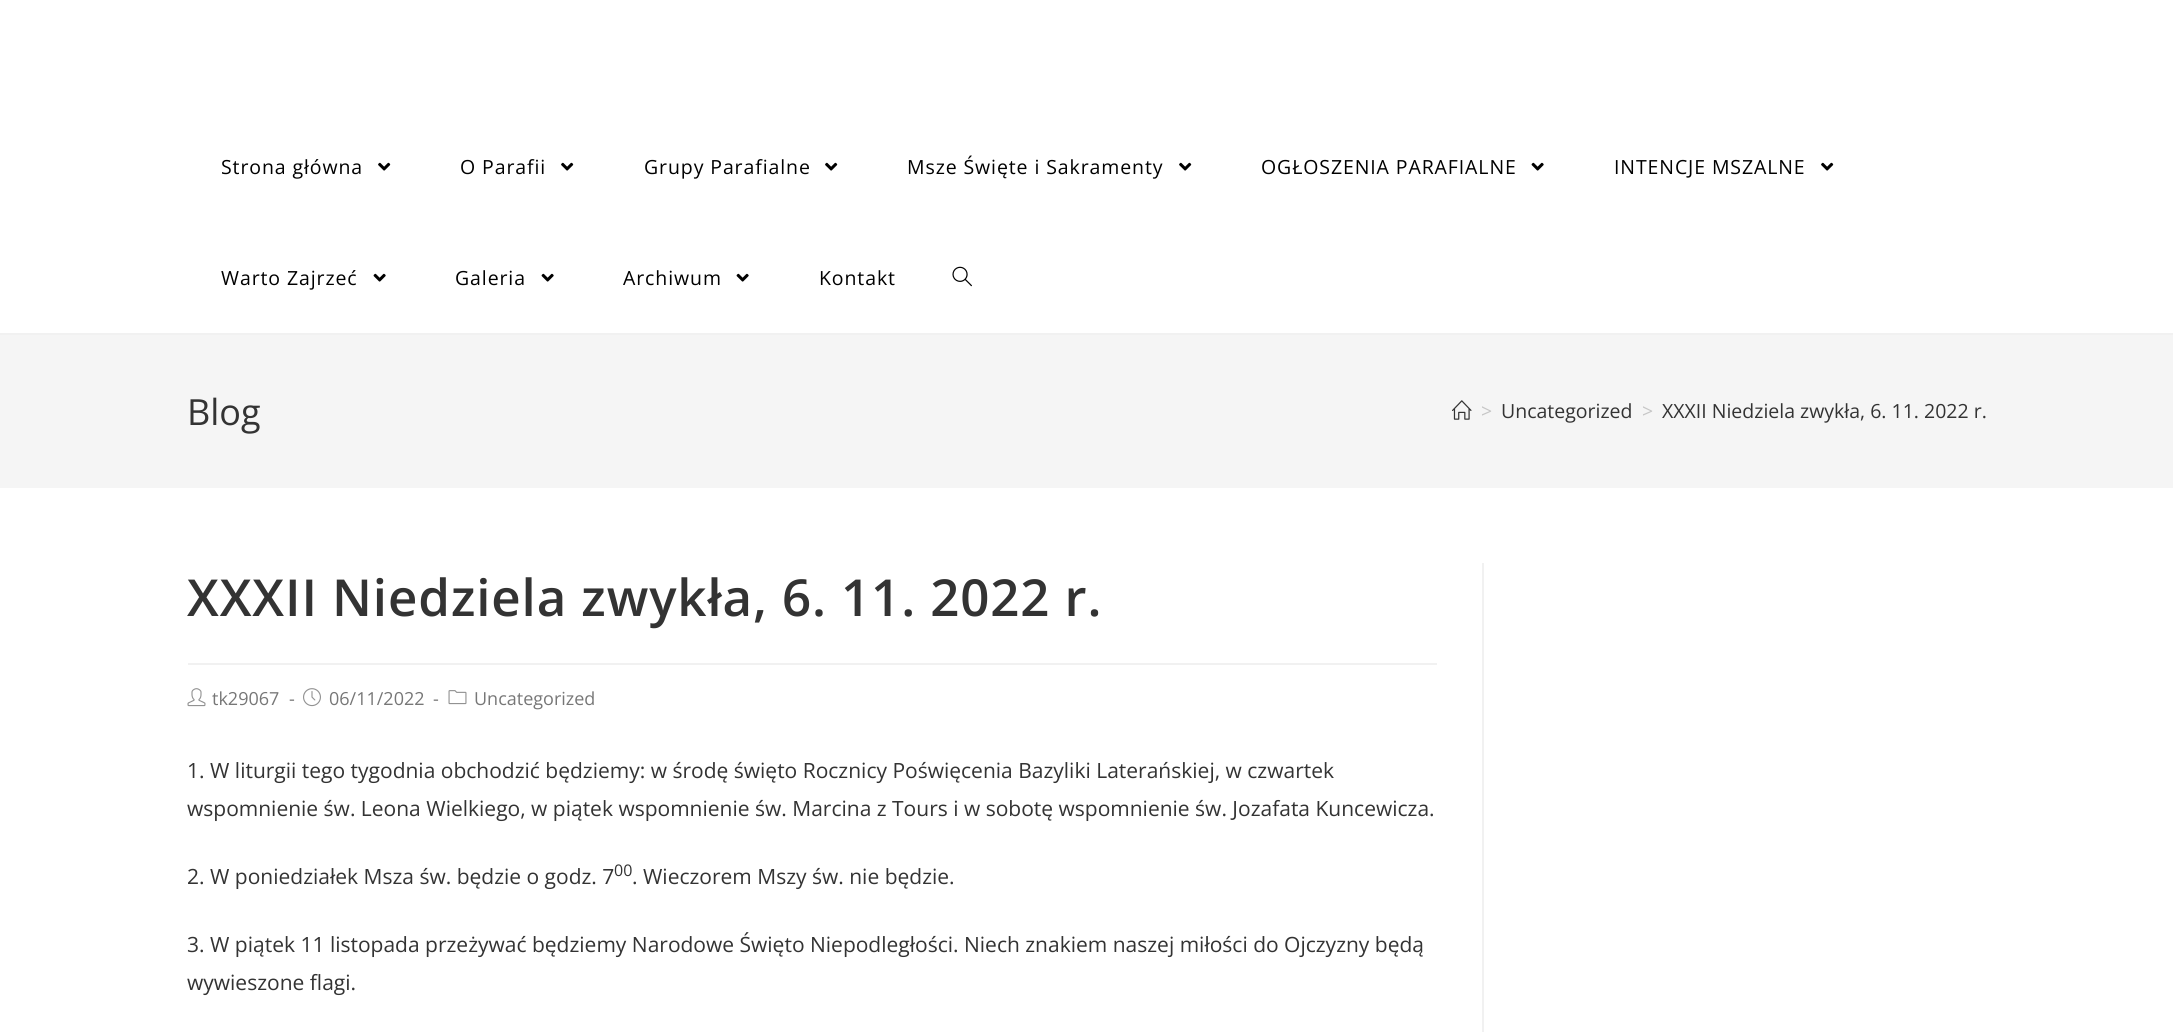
#include <cairo/cairo.h>
#include <math.h>
#include <stddef.h>

static cairo_t *cr;

static void use_color(int r, int g, int b) {
  cairo_set_source_rgb(cr, r / 255.0, g / 255.0, b / 255.0);
}

static void text(double x, double y, const char *s, const char *family, double size, int italic, int bold, int r, int g, int b) {
  cairo_select_font_face(cr, family, italic ? CAIRO_FONT_SLANT_ITALIC : CAIRO_FONT_SLANT_NORMAL,
    bold ? CAIRO_FONT_WEIGHT_BOLD : CAIRO_FONT_WEIGHT_NORMAL);
  cairo_set_font_size(cr, size);
  use_color(r, g, b);
  cairo_move_to(cr, x, y);
  cairo_show_text(cr, s);
}

static void spaced_text(double x, double y, const char *s, double letter, double word) {
  cairo_move_to(cr, x, y);
  while (*s) {
    char ch[5] = {0};
    int n = 0;
    do ch[n++] = *s++; while ((*s & 0xC0) == 0x80);
    cairo_show_text(cr, ch);
    cairo_rel_move_to(cr, letter + word * (*ch == ' '), 0);
  }
}

static void box(double x, double y, double w, double h, int r, int g, int b) {
  use_color(r, g, b);
  cairo_rectangle(cr, x, y, w, h);
  cairo_fill(cr);
}

static void picture(const char *path, double x, double y, double w, double h) {
  cairo_surface_t *image = cairo_image_surface_create_from_png(path);
  cairo_save(cr);
  cairo_set_source_surface(cr, image, x, y);
  cairo_rectangle(cr, x, y, w, h);
  cairo_fill(cr);
  cairo_restore(cr);
  cairo_surface_destroy(image);
}

static void draw(void) {
  use_color(255, 255, 255);
  cairo_paint(cr);
  box(0, 333, 2173, 2, 241, 241, 241);
  picture("img_01.png", 378, 162, 13, 9);
  picture("img_01.png", 561, 162, 13, 9);
  picture("img_01.png", 825, 162, 13, 9);
  picture("img_01.png", 1179, 162, 13, 9);
  picture("img_02.png", 1531, 162, 13, 9);
  picture("img_01.png", 1821, 162, 13, 9);
  picture("img_02.png", 373, 273, 13, 9);
  picture("img_02.png", 541, 273, 13, 9);
  picture("img_02.png", 736, 273, 13, 9);
  picture("img_03.png", 952, 266, 20, 21);
  box(0, 335, 2173, 153, 245, 245, 245);
  picture("img_04.png", 1452, 400, 20, 20);
  box(1482, 563, 2, 469, 241, 241, 241);
  box(188, 663, 1249, 2, 241, 241, 241);
  picture("img_05.png", 187, 688, 19, 19);
  picture("img_06.png", 303, 688, 18, 19);
  picture("img_07.png", 448, 690, 19, 15);
  cairo_select_font_face(cr, "Open Sans", CAIRO_FONT_SLANT_NORMAL, CAIRO_FONT_WEIGHT_NORMAL);
  cairo_set_font_size(cr, 19.5);
  use_color(0, 0, 0);
  spaced_text(221, 174, "Strona główna", 0.9, 0);
  spaced_text(460, 174, "O Parafii", 0.9, 0);
  spaced_text(644, 174, "Grupy Parafialne", 0.9, 0);
  spaced_text(907, 174, "Msze Święte i Sakramenty", 0.9, 0);
  spaced_text(1261, 174, "OGŁOSZENIA PARAFIALNE", 0.9, 0);
  spaced_text(1614, 174, "INTENCJE MSZALNE", 0.9, 0);
  spaced_text(221, 285, "Warto Zajrzeć", 0.9, 0);
  spaced_text(455, 285, "Galeria", 0.9, 0);
  spaced_text(623, 285, "Archiwum", 0.9, 0);
  spaced_text(819, 285, "Kontakt", 0.9, 0);
  text(187, 425, "Blog", "Open Sans", 36, 0, 0, 51, 51, 51);
  text(1481, 418, ">", "Open Sans", 19.5, 0, 0, 198, 198, 198);
  text(1501, 418, "Uncategorized", "Open Sans", 19.5, 0, 0, 51, 51, 51);
  text(1642, 418, ">", "Open Sans", 19.5, 0, 0, 198, 198, 198);
  text(1662, 418, "XXXII Niedziela zwykła, 6. 11. 2022 r.", "Open Sans", 19.5, 0, 0, 51, 51, 51);
  cairo_select_font_face(cr, "Open Sans SemiBold", CAIRO_FONT_SLANT_NORMAL, CAIRO_FONT_WEIGHT_NORMAL);
  cairo_set_font_size(cr, 51);
  spaced_text(187, 616, "XXXII Niedziela zwykła, 6. 11. 2022 r.", 0.9, 0);
  text(212, 705, "tk29067", "Open Sans", 18, 0, 0, 119, 119, 119);
  text(289, 705, "-", "Open Sans", 18, 0, 0, 119, 119, 119);
  text(329, 705, "06/11/2022", "Open Sans", 18, 0, 0, 119, 119, 119);
  text(433, 705, "-", "Open Sans", 18, 0, 0, 119, 119, 119);
  text(474, 705, "Uncategorized", "Open Sans", 18, 0, 0, 119, 119, 119);
  text(187, 778, "1. W liturgii tego tygodnia obchodzić będziemy: w środę święto Rocznicy Poświęcenia Bazyliki Laterańskiej, w czwartek", "Open Sans", 21, 0, 0, 51, 51, 51);
  text(187, 816, "wspomnienie św. Leona Wielkiego, w piątek wspomnienie św. Marcina z Tours i w sobotę wspomnienie św. Jozafata Kuncewicza.", "Open Sans", 21, 0, 0, 51, 51, 51);
  text(187, 884, "2. W poniedziałek Msza św. będzie o godz. 7", "Open Sans", 21, 0, 0, 51, 51, 51);
  text(614, 876, "00", "Open Sans", 16, 0, 0, 51, 51, 51);
  text(632, 884, ". Wieczorem Mszy św. nie będzie.", "Open Sans", 21, 0, 0, 51, 51, 51);
  text(187, 952, "3. W piątek 11 listopada przeżywać będziemy Narodowe Święto Niepodległości. Niech znakiem naszej miłości do Ojczyzny będą", "Open Sans", 21, 0, 0, 51, 51, 51);
  text(187, 990, "wywieszone flagi.", "Open Sans", 21, 0, 0, 51, 51, 51);
}

int main(void) {
  cairo_surface_t *surface = cairo_image_surface_create(CAIRO_FORMAT_RGB24, 2173, 1032);
  cr = cairo_create(surface);
  cairo_font_options_t *options = cairo_font_options_create();
  cairo_font_options_set_hint_metrics(options, CAIRO_HINT_METRICS_OFF);
  cairo_font_options_set_hint_style(options, CAIRO_HINT_STYLE_NONE);
  cairo_set_font_options(cr, options);
  cairo_set_miter_limit(cr, 4);
  draw();
  cairo_surface_write_to_png(surface, "out.png");
  cairo_font_options_destroy(options);
  cairo_destroy(cr);
  cairo_surface_destroy(surface);
  return 0;
}
